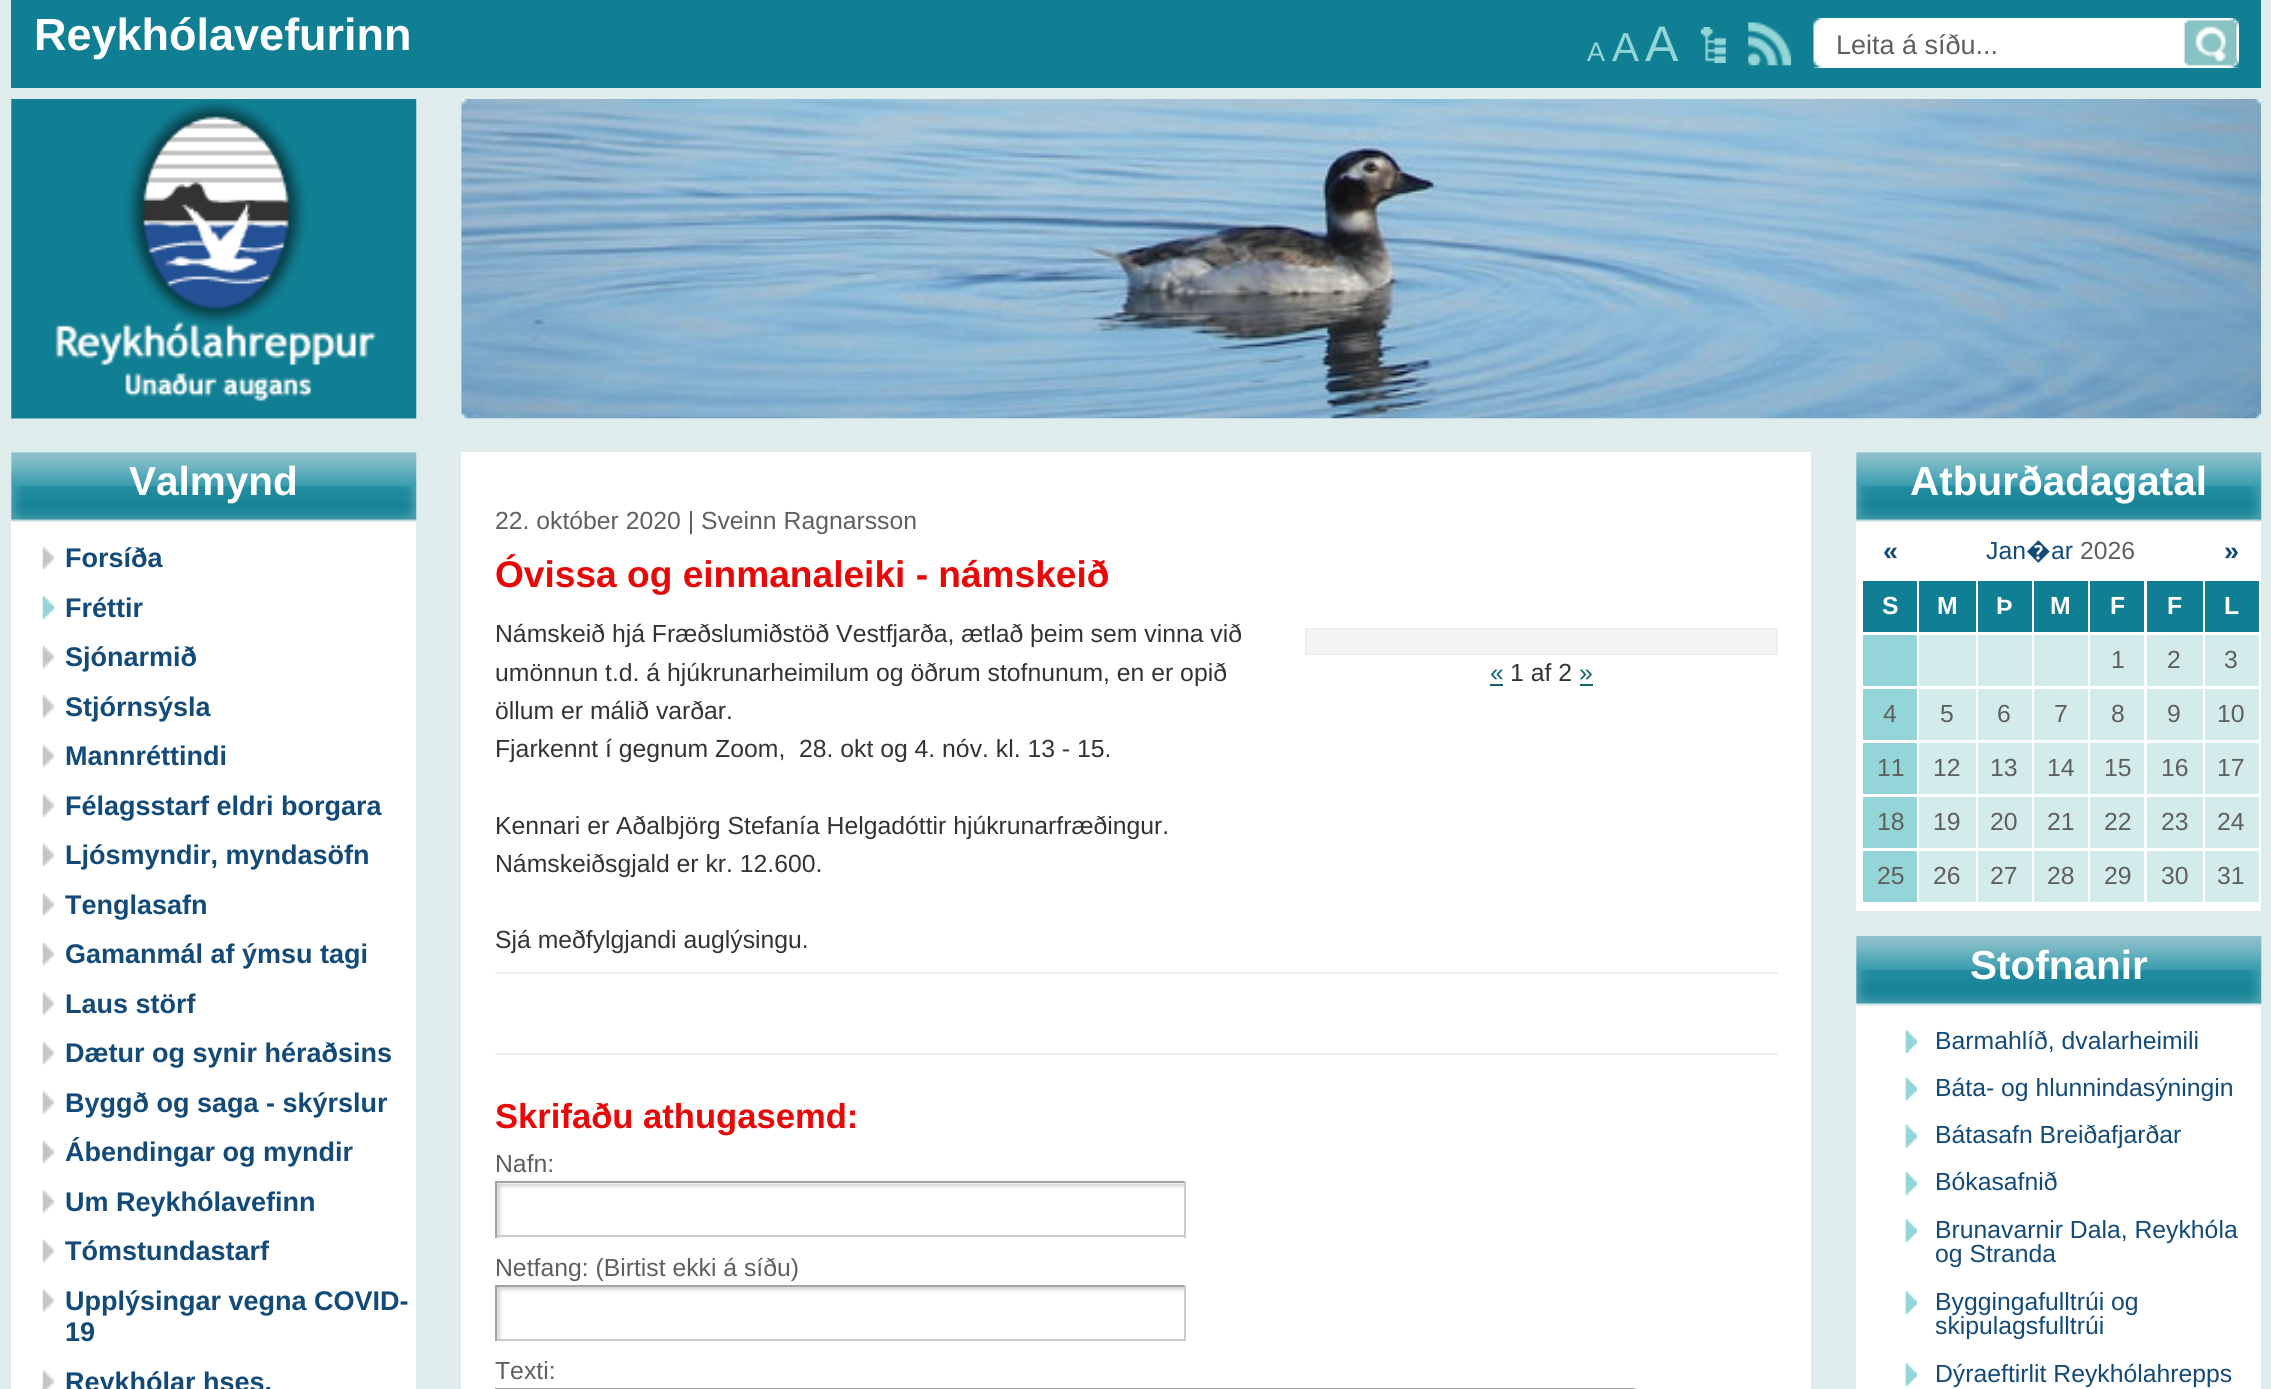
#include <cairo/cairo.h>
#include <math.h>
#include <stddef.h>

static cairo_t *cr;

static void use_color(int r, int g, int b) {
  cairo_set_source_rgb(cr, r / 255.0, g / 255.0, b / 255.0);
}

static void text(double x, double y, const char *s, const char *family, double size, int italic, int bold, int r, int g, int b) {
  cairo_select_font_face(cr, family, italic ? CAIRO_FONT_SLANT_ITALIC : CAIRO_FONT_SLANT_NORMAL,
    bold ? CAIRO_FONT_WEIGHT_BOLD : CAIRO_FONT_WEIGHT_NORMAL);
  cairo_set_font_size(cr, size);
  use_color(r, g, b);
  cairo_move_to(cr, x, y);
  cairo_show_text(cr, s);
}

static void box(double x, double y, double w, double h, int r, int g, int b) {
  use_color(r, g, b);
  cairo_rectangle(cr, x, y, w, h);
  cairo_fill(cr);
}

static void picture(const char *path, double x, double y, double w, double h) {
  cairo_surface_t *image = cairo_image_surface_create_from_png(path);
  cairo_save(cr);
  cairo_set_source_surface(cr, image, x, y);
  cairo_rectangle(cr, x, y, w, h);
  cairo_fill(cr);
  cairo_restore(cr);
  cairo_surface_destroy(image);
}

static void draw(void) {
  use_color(222, 236, 236);
  cairo_paint(cr);
  box(11, 0, 2250, 88, 17, 127, 147);
  picture("img_01.png", 1701, 27, 25, 36);
  picture("img_02.png", 1748, 22, 43, 44);
  box(1814, 18, 425, 50, 255, 255, 255);
  picture("img_03.png", 1813, 18, 10, 50);
  picture("img_04.png", 2184, 18, 55, 50);
  picture("img_05.png", 2184, 18, 55, 50);
  picture("img_06.png", 11, 99, 406, 320);
  picture("img_07.png", 461, 99, 1801, 320);
  box(11, 452, 405, 937, 255, 255, 255);
  picture("img_08.png", 11, 452, 406, 70);
  picture("img_09.png", 42, 546, 12, 24);
  picture("img_10.png", 42, 596, 12, 23);
  picture("img_09.png", 42, 645, 12, 24);
  picture("img_11.png", 42, 695, 12, 23);
  picture("img_09.png", 42, 744, 12, 24);
  picture("img_11.png", 42, 794, 12, 23);
  picture("img_09.png", 42, 843, 12, 24);
  picture("img_11.png", 42, 893, 12, 23);
  picture("img_09.png", 42, 942, 12, 24);
  picture("img_11.png", 42, 992, 12, 23);
  picture("img_09.png", 42, 1041, 12, 24);
  picture("img_11.png", 42, 1091, 12, 23);
  picture("img_09.png", 42, 1140, 12, 24);
  picture("img_11.png", 42, 1190, 12, 23);
  picture("img_09.png", 42, 1239, 12, 24);
  picture("img_11.png", 42, 1289, 12, 23);
  picture("img_12.png", 42, 1370, 12, 19);
  box(461, 452, 1350, 937, 255, 255, 255);
  use_color(245, 245, 245);
  cairo_rectangle(cr, 1306, 629, 471, 25);
  cairo_fill_preserve(cr);
  use_color(238, 238, 238);
  cairo_stroke(cr);
  box(1490, 684, 13, 2, 18, 101, 103);
  box(1580, 684, 13, 2, 18, 101, 103);
  box(495, 972, 1283, 2, 238, 238, 238);
  box(495, 1053, 1283, 2, 238, 238, 238);
  picture("img_13.png", 497, 1183, 687, 55);
  box(495, 1181, 691, 2, 163, 163, 163);
  box(1184, 1181, 2, 57, 204, 204, 204);
  box(495, 1235, 691, 2, 204, 204, 204);
  box(495, 1181, 2, 57, 163, 163, 163);
  picture("img_14.png", 497, 1287, 687, 52);
  box(495, 1285, 691, 2, 163, 163, 163);
  box(1184, 1285, 2, 56, 204, 204, 204);
  box(495, 1339, 691, 2, 204, 204, 204);
  box(495, 1285, 2, 56, 163, 163, 163);
  box(495, 1388, 1141, 1, 163, 163, 163);
  box(1634, 1388, 2, 1, 204, 204, 204);
  box(1856, 452, 405, 459, 255, 255, 255);
  picture("img_15.png", 1856, 452, 406, 70);
  box(1863, 581, 54, 51, 17, 127, 147);
  box(1919, 581, 57, 51, 17, 127, 147);
  box(1978, 581, 54, 51, 17, 127, 147);
  box(2034, 581, 54, 51, 17, 127, 147);
  box(2090, 581, 54, 51, 17, 127, 147);
  box(2147, 581, 56, 51, 17, 127, 147);
  box(2205, 581, 54, 51, 17, 127, 147);
  box(1863, 635, 54, 51, 148, 214, 215);
  box(1919, 635, 57, 51, 212, 235, 235);
  box(1978, 635, 54, 51, 212, 235, 235);
  box(2034, 635, 54, 51, 212, 235, 235);
  box(2090, 635, 54, 51, 212, 235, 235);
  box(2147, 635, 56, 51, 212, 235, 235);
  box(2205, 635, 54, 51, 212, 235, 235);
  box(1863, 689, 54, 51, 148, 214, 215);
  box(1919, 689, 57, 51, 212, 235, 235);
  box(1978, 689, 54, 51, 212, 235, 235);
  box(2034, 689, 54, 51, 212, 235, 235);
  box(2090, 689, 54, 51, 212, 235, 235);
  box(2147, 689, 56, 51, 212, 235, 235);
  box(2205, 689, 54, 51, 212, 235, 235);
  box(1863, 743, 54, 51, 148, 214, 215);
  box(1919, 743, 57, 51, 212, 235, 235);
  box(1978, 743, 54, 51, 212, 235, 235);
  box(2034, 743, 54, 51, 212, 235, 235);
  box(2090, 743, 54, 51, 212, 235, 235);
  box(2147, 743, 56, 51, 212, 235, 235);
  box(2205, 743, 54, 51, 212, 235, 235);
  box(1863, 797, 54, 51, 148, 214, 215);
  box(1919, 797, 57, 51, 212, 235, 235);
  box(1978, 797, 54, 51, 212, 235, 235);
  box(2034, 797, 54, 51, 212, 235, 235);
  box(2090, 797, 54, 51, 212, 235, 235);
  box(2147, 797, 56, 51, 212, 235, 235);
  box(2205, 797, 54, 51, 212, 235, 235);
  box(1863, 851, 54, 51, 148, 214, 215);
  box(1919, 851, 57, 51, 212, 235, 235);
  box(1978, 851, 54, 51, 212, 235, 235);
  box(2034, 851, 54, 51, 212, 235, 235);
  box(2090, 851, 54, 51, 212, 235, 235);
  box(2147, 851, 56, 51, 212, 235, 235);
  box(2205, 851, 54, 51, 212, 235, 235);
  box(1856, 936, 405, 453, 255, 255, 255);
  picture("img_16.png", 1856, 936, 406, 70);
  picture("img_17.png", 1905, 1030, 12, 23);
  picture("img_18.png", 1905, 1077, 12, 24);
  picture("img_19.png", 1905, 1125, 12, 23);
  picture("img_20.png", 1905, 1172, 12, 23);
  picture("img_17.png", 1905, 1219, 12, 23);
  picture("img_17.png", 1905, 1291, 12, 23);
  picture("img_17.png", 1905, 1363, 12, 23);
  text(34, 50, "Reykhólavefurinn", "Liberation Sans", 45, 0, 1, 255, 255, 255);
  text(1587, 61, "A", "Liberation Sans", 27, 0, 0, 148, 214, 215);
  text(1612, 61, "A", "Liberation Sans", 40.5, 0, 0, 148, 214, 215);
  text(1645, 61, "A", "Liberation Sans", 50, 0, 0, 148, 214, 215);
  text(1836, 54, "Leita á síðu...", "Liberation Sans", 27, 0, 0, 95, 95, 95);
  text(129, 495, "Valmynd", "Liberation Sans", 40.5, 0, 1, 255, 255, 255);
  text(65, 567, "Forsíða", "Liberation Sans", 27, 0, 1, 19, 74, 120);
  text(65, 617, "Fréttir", "Liberation Sans", 27, 0, 1, 19, 74, 120);
  text(65, 666, "Sjónarmið", "Liberation Sans", 27, 0, 1, 19, 74, 120);
  text(65, 716, "Stjórnsýsla", "Liberation Sans", 27, 0, 1, 19, 74, 120);
  text(65, 765, "Mannréttindi", "Liberation Sans", 27, 0, 1, 19, 74, 120);
  text(65, 815, "Félagsstarf eldri borgara", "Liberation Sans", 27, 0, 1, 19, 74, 120);
  text(65, 864, "Ljósmyndir, myndasöfn", "Liberation Sans", 27, 0, 1, 19, 74, 120);
  text(65, 914, "Tenglasafn", "Liberation Sans", 27, 0, 1, 19, 74, 120);
  text(65, 963, "Gamanmál af ýmsu tagi", "Liberation Sans", 27, 0, 1, 19, 74, 120);
  text(65, 1013, "Laus störf", "Liberation Sans", 27, 0, 1, 19, 74, 120);
  text(65, 1062, "Dætur og synir héraðsins", "Liberation Sans", 27, 0, 1, 19, 74, 120);
  text(65, 1112, "Byggð og saga - skýrslur", "Liberation Sans", 27, 0, 1, 19, 74, 120);
  text(65, 1161, "Ábendingar og myndir", "Liberation Sans", 27, 0, 1, 19, 74, 120);
  text(65, 1211, "Um Reykhólavefinn", "Liberation Sans", 27, 0, 1, 19, 74, 120);
  text(65, 1260, "Tómstundastarf", "Liberation Sans", 27, 0, 1, 19, 74, 120);
  text(65, 1310, "Upplýsingar vegna COVID-", "Liberation Sans", 27, 0, 1, 19, 74, 120);
  text(65, 1341, "19", "Liberation Sans", 27, 0, 1, 19, 74, 120);
  text(65, 1391, "Reykhólar hses.", "Liberation Sans", 27, 0, 1, 19, 74, 120);
  text(495, 529, "22. október 2020 | Sveinn Ragnarsson", "Liberation Sans", 24.75, 0, 0, 95, 95, 95);
  text(495, 587, "Óvissa og einmanaleiki - námskeið", "Liberation Sans", 37.1, 0, 1, 232, 8, 8);
  text(495, 642, "Námskeið hjá Fræðslumiðstöð Vestfjarða, ætlað þeim sem vinna við", "Liberation Sans", 24.75, 0, 0, 51, 51, 51);
  text(495, 681, "umönnun t.d. á hjúkrunarheimilum og öðrum stofnunum, en er opið", "Liberation Sans", 24.75, 0, 0, 51, 51, 51);
  text(495, 719, "öllum er málið varðar.", "Liberation Sans", 24.75, 0, 0, 51, 51, 51);
  text(1490, 681, "«", "Liberation Sans", 24.75, 0, 0, 18, 101, 103);
  text(1510, 681, "1 af 2", "Liberation Sans", 24.75, 0, 0, 51, 51, 51);
  text(1579, 681, "»", "Liberation Sans", 24.75, 0, 0, 18, 101, 103);
  text(495, 757, "Fjarkennt í gegnum Zoom,  28. okt og 4. nóv. kl. 13 - 15.", "Liberation Sans", 24.75, 0, 0, 51, 51, 51);
  text(495, 834, "Kennari er Aðalbjörg Stefanía Helgadóttir hjúkrunarfræðingur.", "Liberation Sans", 24.75, 0, 0, 51, 51, 51);
  text(495, 872, "Námskeiðsgjald er kr. 12.600.", "Liberation Sans", 24.75, 0, 0, 51, 51, 51);
  text(495, 948, "Sjá meðfylgjandi auglýsingu.", "Liberation Sans", 24.75, 0, 0, 51, 51, 51);
  text(495, 1128, "Skrifaðu athugasemd:", "Liberation Sans", 34.6, 0, 1, 232, 8, 8);
  text(495, 1172, "Nafn:", "Liberation Sans", 24.75, 0, 0, 95, 95, 95);
  text(495, 1276, "Netfang: (Birtist ekki á síðu)", "Liberation Sans", 24.75, 0, 0, 95, 95, 95);
  text(495, 1379, "Texti:", "Liberation Sans", 24.75, 0, 0, 95, 95, 95);
  text(1910, 495, "Atburðadagatal", "Liberation Sans", 40.5, 0, 1, 255, 255, 255);
  text(1883, 560, "«", "Liberation Sans", 27, 0, 1, 19, 74, 120);
  text(1986, 559, "Jan", "Liberation Sans", 24.75, 0, 0, 19, 74, 120);
  text(2026, 559, "�", "Noto Sans", 24.75, 0, 0, 19, 74, 120);
  text(2051, 559, "ar", "Liberation Sans", 24.75, 0, 0, 19, 74, 120);
  text(2080, 559, "2026", "Liberation Sans", 24.75, 0, 0, 95, 95, 95);
  text(2224, 560, "»", "Liberation Sans", 27, 0, 1, 19, 74, 120);
  text(1882, 614, "S", "Liberation Sans", 24.75, 0, 1, 255, 255, 255);
  text(1937, 614, "M", "Liberation Sans", 24.75, 0, 1, 255, 255, 255);
  text(1996, 614, "Þ", "Liberation Sans", 24.75, 0, 1, 255, 255, 255);
  text(2050, 614, "M", "Liberation Sans", 24.75, 0, 1, 255, 255, 255);
  text(2110, 614, "F", "Liberation Sans", 24.75, 0, 1, 255, 255, 255);
  text(2167, 614, "F", "Liberation Sans", 24.75, 0, 1, 255, 255, 255);
  text(2224, 614, "L", "Liberation Sans", 24.75, 0, 1, 255, 255, 255);
  text(2111, 668, "1", "Liberation Sans", 24.75, 0, 0, 95, 95, 95);
  text(2167, 668, "2", "Liberation Sans", 24.75, 0, 0, 95, 95, 95);
  text(2224, 668, "3", "Liberation Sans", 24.75, 0, 0, 95, 95, 95);
  text(1883, 722, "4", "Liberation Sans", 24.75, 0, 0, 95, 95, 95);
  text(1940, 722, "5", "Liberation Sans", 24.75, 0, 0, 95, 95, 95);
  text(1997, 722, "6", "Liberation Sans", 24.75, 0, 0, 95, 95, 95);
  text(2054, 722, "7", "Liberation Sans", 24.75, 0, 0, 95, 95, 95);
  text(2111, 722, "8", "Liberation Sans", 24.75, 0, 0, 95, 95, 95);
  text(2167, 722, "9", "Liberation Sans", 24.75, 0, 0, 95, 95, 95);
  text(2217, 722, "10", "Liberation Sans", 24.75, 0, 0, 95, 95, 95);
  text(1877, 776, "11", "Liberation Sans", 24.75, 0, 0, 95, 95, 95);
  text(1933, 776, "12", "Liberation Sans", 24.75, 0, 0, 95, 95, 95);
  text(1990, 776, "13", "Liberation Sans", 24.75, 0, 0, 95, 95, 95);
  text(2047, 776, "14", "Liberation Sans", 24.75, 0, 0, 95, 95, 95);
  text(2104, 776, "15", "Liberation Sans", 24.75, 0, 0, 95, 95, 95);
  text(2161, 776, "16", "Liberation Sans", 24.75, 0, 0, 95, 95, 95);
  text(2217, 776, "17", "Liberation Sans", 24.75, 0, 0, 95, 95, 95);
  text(1877, 830, "18", "Liberation Sans", 24.75, 0, 0, 95, 95, 95);
  text(1933, 830, "19", "Liberation Sans", 24.75, 0, 0, 95, 95, 95);
  text(1990, 830, "20", "Liberation Sans", 24.75, 0, 0, 95, 95, 95);
  text(2047, 830, "21", "Liberation Sans", 24.75, 0, 0, 95, 95, 95);
  text(2104, 830, "22", "Liberation Sans", 24.75, 0, 0, 95, 95, 95);
  text(2161, 830, "23", "Liberation Sans", 24.75, 0, 0, 95, 95, 95);
  text(2217, 830, "24", "Liberation Sans", 24.75, 0, 0, 95, 95, 95);
  text(1877, 884, "25", "Liberation Sans", 24.75, 0, 0, 95, 95, 95);
  text(1933, 884, "26", "Liberation Sans", 24.75, 0, 0, 95, 95, 95);
  text(1990, 884, "27", "Liberation Sans", 24.75, 0, 0, 95, 95, 95);
  text(2047, 884, "28", "Liberation Sans", 24.75, 0, 0, 95, 95, 95);
  text(2104, 884, "29", "Liberation Sans", 24.75, 0, 0, 95, 95, 95);
  text(2161, 884, "30", "Liberation Sans", 24.75, 0, 0, 95, 95, 95);
  text(2217, 884, "31", "Liberation Sans", 24.75, 0, 0, 95, 95, 95);
  text(1970, 979, "Stofnanir", "Liberation Sans", 40.5, 0, 1, 255, 255, 255);
  text(1935, 1049, "Barmahlíð, dvalarheimili", "Liberation Sans", 24.75, 0, 0, 19, 74, 120);
  text(1935, 1096, "Báta- og hlunnindasýningin", "Liberation Sans", 24.75, 0, 0, 19, 74, 120);
  text(1935, 1143, "Bátasafn Breiðafjarðar", "Liberation Sans", 24.75, 0, 0, 19, 74, 120);
  text(1935, 1190, "Bókasafnið", "Liberation Sans", 24.75, 0, 0, 19, 74, 120);
  text(1935, 1238, "Brunavarnir Dala, Reykhóla", "Liberation Sans", 24.75, 0, 0, 19, 74, 120);
  text(1935, 1262, "og Stranda", "Liberation Sans", 24.75, 0, 0, 19, 74, 120);
  text(1935, 1310, "Byggingafulltrúi og", "Liberation Sans", 24.75, 0, 0, 19, 74, 120);
  text(1935, 1334, "skipulagsfulltrúi", "Liberation Sans", 24.75, 0, 0, 19, 74, 120);
  text(1935, 1382, "Dýraeftirlit Reykhólahrepps", "Liberation Sans", 24.75, 0, 0, 19, 74, 120);
}

int main(void) {
  cairo_surface_t *surface = cairo_image_surface_create(CAIRO_FORMAT_RGB24, 2271, 1389);
  cr = cairo_create(surface);
  cairo_font_options_t *options = cairo_font_options_create();
  cairo_font_options_set_hint_metrics(options, CAIRO_HINT_METRICS_OFF);
  cairo_font_options_set_hint_style(options, CAIRO_HINT_STYLE_NONE);
  cairo_set_font_options(cr, options);
  cairo_set_miter_limit(cr, 4);
  draw();
  cairo_surface_write_to_png(surface, "out.png");
  cairo_font_options_destroy(options);
  cairo_destroy(cr);
  cairo_surface_destroy(surface);
  return 0;
}
